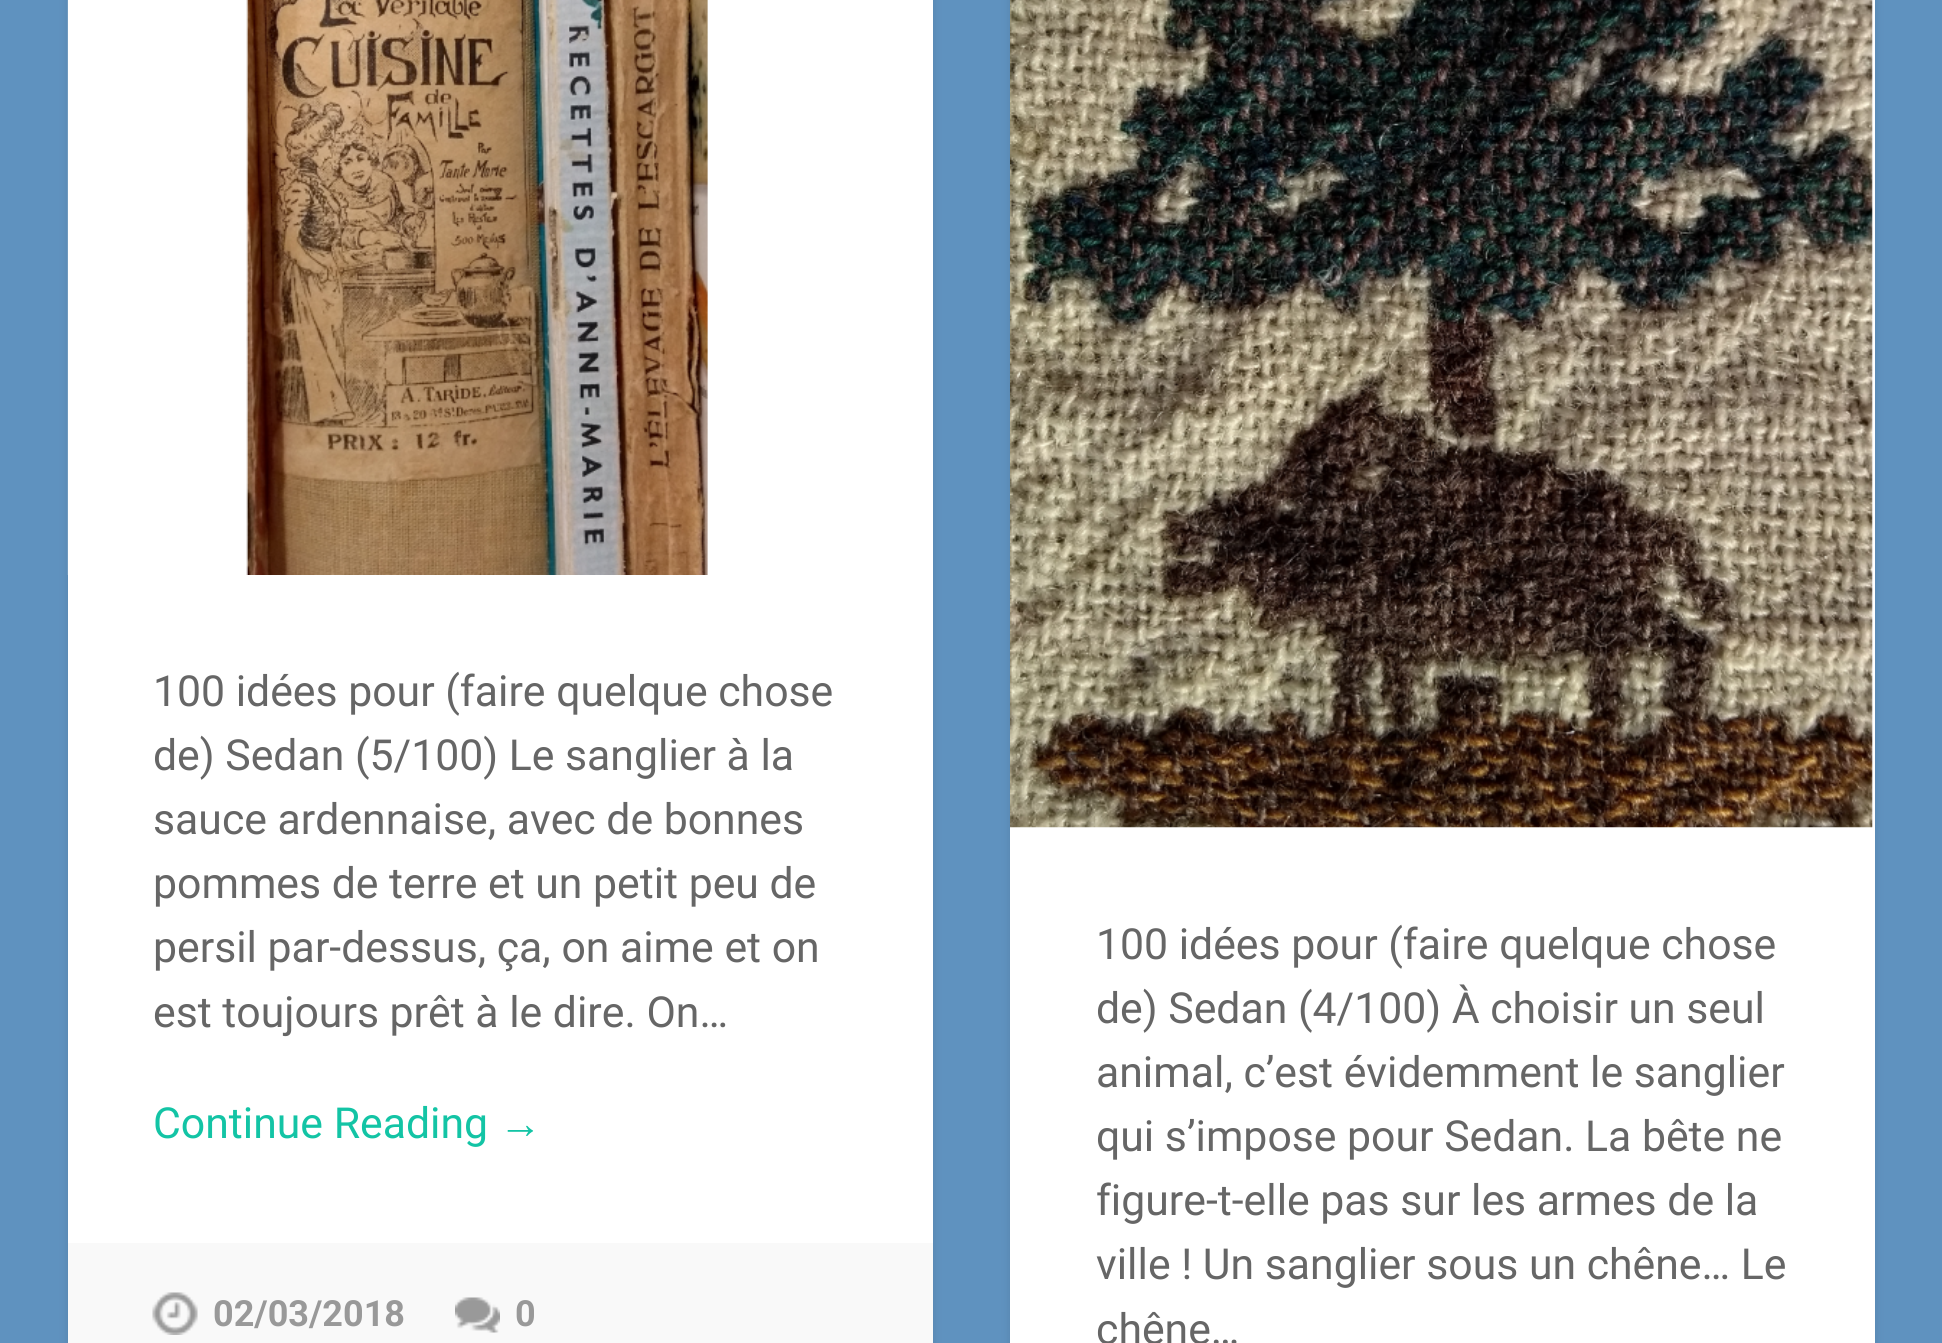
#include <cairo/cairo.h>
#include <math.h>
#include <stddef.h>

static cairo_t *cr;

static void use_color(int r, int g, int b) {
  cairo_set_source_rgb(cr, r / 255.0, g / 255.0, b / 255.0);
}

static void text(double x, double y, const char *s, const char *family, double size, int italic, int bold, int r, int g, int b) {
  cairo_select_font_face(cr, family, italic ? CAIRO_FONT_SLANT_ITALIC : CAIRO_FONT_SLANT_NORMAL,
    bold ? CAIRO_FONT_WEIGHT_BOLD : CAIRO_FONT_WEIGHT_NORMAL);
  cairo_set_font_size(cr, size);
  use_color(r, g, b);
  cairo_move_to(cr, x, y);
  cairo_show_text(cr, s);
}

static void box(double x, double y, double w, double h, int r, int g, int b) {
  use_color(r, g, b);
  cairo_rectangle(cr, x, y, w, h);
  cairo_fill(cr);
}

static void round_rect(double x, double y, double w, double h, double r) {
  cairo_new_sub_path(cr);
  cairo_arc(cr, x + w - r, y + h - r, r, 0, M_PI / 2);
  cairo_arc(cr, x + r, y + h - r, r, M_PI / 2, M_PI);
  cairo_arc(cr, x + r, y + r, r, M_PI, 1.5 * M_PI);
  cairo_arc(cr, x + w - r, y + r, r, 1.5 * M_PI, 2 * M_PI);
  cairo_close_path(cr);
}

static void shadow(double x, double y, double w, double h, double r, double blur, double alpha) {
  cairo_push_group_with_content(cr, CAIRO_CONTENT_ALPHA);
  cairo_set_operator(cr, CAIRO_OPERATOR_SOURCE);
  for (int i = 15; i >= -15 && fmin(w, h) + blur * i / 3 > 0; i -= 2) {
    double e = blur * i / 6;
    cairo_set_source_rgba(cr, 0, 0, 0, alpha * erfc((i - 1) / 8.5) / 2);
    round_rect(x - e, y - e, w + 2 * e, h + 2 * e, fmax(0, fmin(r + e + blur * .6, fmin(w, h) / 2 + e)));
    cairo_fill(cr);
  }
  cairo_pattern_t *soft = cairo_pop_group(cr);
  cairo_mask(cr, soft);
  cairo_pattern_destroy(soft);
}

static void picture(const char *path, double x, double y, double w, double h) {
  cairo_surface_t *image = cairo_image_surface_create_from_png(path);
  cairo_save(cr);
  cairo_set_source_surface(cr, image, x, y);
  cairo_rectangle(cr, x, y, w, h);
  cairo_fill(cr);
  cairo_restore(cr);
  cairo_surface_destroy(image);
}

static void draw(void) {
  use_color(95, 146, 191);
  cairo_paint(cr);
  use_color(0, 0, 0);
  shadow(68, -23, 865, 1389, 8, 5, 0.1);
  box(68, 0, 865, 1243, 255, 255, 255);
  picture("img_01.png", 67, 0, 641, 575);
  box(68, 1243, 865, 100, 249, 249, 249);
  picture("img_02.png", 152, 1292, 46, 43);
  picture("img_03.png", 455, 1297, 45, 36);
  use_color(0, 0, 0);
  shadow(1010, -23, 865, 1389, 8, 5, 0.1);
  box(1010, 0, 865, 1343, 255, 255, 255);
  picture("img_04.png", 1010, 0, 863, 828);
  text(153, 706, "100 idées pour (faire quelque chose", "Roboto", 42.75, 0, 0, 102, 102, 102);
  text(153, 770, "de) Sedan (5/100) Le sanglier à la", "Roboto", 42.75, 0, 0, 102, 102, 102);
  text(153, 834, "sauce ardennaise, avec de bonnes", "Roboto", 42.75, 0, 0, 102, 102, 102);
  text(153, 898, "pommes de terre et un petit peu de", "Roboto", 42.75, 0, 0, 102, 102, 102);
  text(153, 962, "persil par-dessus, ça, on aime et on", "Roboto", 42.75, 0, 0, 102, 102, 102);
  text(153, 1027, "est toujours prêt à le dire. On…", "Roboto", 42.75, 0, 0, 102, 102, 102);
  text(153, 1138, "Continue Reading", "Roboto", 42.75, 0, 0, 19, 196, 165);
  text(499, 1138, "→", "Liberation Sans", 42.75, 0, 0, 19, 196, 165);
  text(213, 1326, "02/03/2018", "Roboto", 36, 0, 1, 153, 153, 153);
  text(515, 1326, "0", "Roboto", 36, 0, 1, 153, 153, 153);
  text(1096, 959, "100 idées pour (faire quelque chose", "Roboto", 42.75, 0, 0, 102, 102, 102);
  text(1096, 1023, "de) Sedan (4/100) À choisir un seul", "Roboto", 42.75, 0, 0, 102, 102, 102);
  text(1096, 1087, "animal, c’est évidemment le sanglier", "Roboto", 42.75, 0, 0, 102, 102, 102);
  text(1096, 1151, "qui s’impose pour Sedan. La bête ne", "Roboto", 42.75, 0, 0, 102, 102, 102);
  text(1096, 1215, "figure-t-elle pas sur les armes de la", "Roboto", 42.75, 0, 0, 102, 102, 102);
  text(1096, 1279, "ville ! Un sanglier sous un chêne… Le", "Roboto", 42.75, 0, 0, 102, 102, 102);
  text(1096, 1344, "chêne…", "Roboto", 42.75, 0, 0, 102, 102, 102);
}

int main(void) {
  cairo_surface_t *surface = cairo_image_surface_create(CAIRO_FORMAT_RGB24, 1942, 1343);
  cr = cairo_create(surface);
  cairo_font_options_t *options = cairo_font_options_create();
  cairo_font_options_set_hint_metrics(options, CAIRO_HINT_METRICS_OFF);
  cairo_font_options_set_hint_style(options, CAIRO_HINT_STYLE_NONE);
  cairo_set_font_options(cr, options);
  cairo_set_miter_limit(cr, 4);
  draw();
  cairo_surface_write_to_png(surface, "out.png");
  cairo_font_options_destroy(options);
  cairo_destroy(cr);
  cairo_surface_destroy(surface);
  return 0;
}
